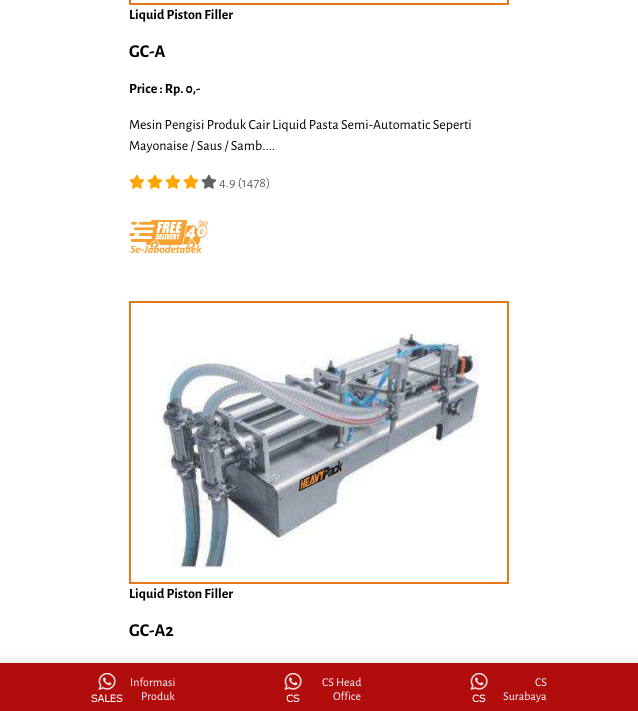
#include <cairo/cairo.h>
#include <math.h>
#include <stddef.h>

static cairo_t *cr;

static void use_color(int r, int g, int b) {
  cairo_set_source_rgb(cr, r / 255.0, g / 255.0, b / 255.0);
}

static void text(double x, double y, const char *s, const char *family, double size, int italic, int bold, int r, int g, int b) {
  cairo_select_font_face(cr, family, italic ? CAIRO_FONT_SLANT_ITALIC : CAIRO_FONT_SLANT_NORMAL,
    bold ? CAIRO_FONT_WEIGHT_BOLD : CAIRO_FONT_WEIGHT_NORMAL);
  cairo_set_font_size(cr, size);
  use_color(r, g, b);
  cairo_move_to(cr, x, y);
  cairo_show_text(cr, s);
}

static void box(double x, double y, double w, double h, int r, int g, int b) {
  use_color(r, g, b);
  cairo_rectangle(cr, x, y, w, h);
  cairo_fill(cr);
}

static void round_rect(double x, double y, double w, double h, double r) {
  cairo_new_sub_path(cr);
  cairo_arc(cr, x + w - r, y + h - r, r, 0, M_PI / 2);
  cairo_arc(cr, x + r, y + h - r, r, M_PI / 2, M_PI);
  cairo_arc(cr, x + r, y + r, r, M_PI, 1.5 * M_PI);
  cairo_arc(cr, x + w - r, y + r, r, 1.5 * M_PI, 2 * M_PI);
  cairo_close_path(cr);
}

static void shadow(double x, double y, double w, double h, double r, double blur, double alpha) {
  cairo_push_group_with_content(cr, CAIRO_CONTENT_ALPHA);
  cairo_set_operator(cr, CAIRO_OPERATOR_SOURCE);
  for (int i = 15; i >= -15 && fmin(w, h) + blur * i / 3 > 0; i -= 2) {
    double e = blur * i / 6;
    cairo_set_source_rgba(cr, 0, 0, 0, alpha * erfc((i - 1) / 8.5) / 2);
    round_rect(x - e, y - e, w + 2 * e, h + 2 * e, fmax(0, fmin(r + e + blur * .6, fmin(w, h) / 2 + e)));
    cairo_fill(cr);
  }
  cairo_pattern_t *soft = cairo_pop_group(cr);
  cairo_mask(cr, soft);
  cairo_pattern_destroy(soft);
}

static void picture(const char *path, double x, double y, double w, double h) {
  cairo_surface_t *image = cairo_image_surface_create_from_png(path);
  cairo_save(cr);
  cairo_set_source_surface(cr, image, x, y);
  cairo_rectangle(cr, x, y, w, h);
  cairo_fill(cr);
  cairo_restore(cr);
  cairo_surface_destroy(image);
}

static void draw(void) {
  use_color(255, 255, 255);
  cairo_paint(cr);
  cairo_rectangle(cr, 130, -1, 378, 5);
  use_color(229, 119, 25);
  cairo_stroke(cr);
  picture("img_01.png", 129, 174, 16, 15);
  picture("img_01.png", 147, 174, 16, 15);
  picture("img_01.png", 165, 174, 16, 15);
  picture("img_01.png", 183, 174, 16, 15);
  picture("img_02.png", 201, 174, 16, 15);
  picture("img_03.png", 129, 219, 79, 34);
  cairo_rectangle(cr, 130, 302, 378, 281);
  cairo_stroke(cr);
  picture("img_04.png", 159, 331, 321, 237);
  use_color(0, 0, 0);
  shadow(0, 667, 638, 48, 0, 8, 0.2);
  box(0, 663, 638, 48, 176, 13, 12);
  picture("img_05.png", 91, 673, 32, 29);
  picture("img_06.png", 284, 673, 18, 29);
  picture("img_06.png", 470, 673, 18, 29);
  text(129, 19, "Liquid Piston Filler", "Alegreya Sans", 14, 0, 1, 0, 0, 0);
  text(129, 57, "GC-A", "Alegreya Sans", 18, 0, 1, 0, 0, 0);
  text(129, 93, "Price : Rp. 0,-", "Alegreya Sans", 14, 0, 1, 0, 0, 0);
  text(129, 129, "Mesin Pengisi Produk Cair Liquid Pasta Semi-Automatic Seperti", "Alegreya Sans", 14, 0, 0, 0, 0, 0);
  text(129, 150, "Mayonaise / Saus / Samb....", "Alegreya Sans", 14, 0, 0, 0, 0, 0);
  text(219, 187, "4.9 (1478)", "Alegreya Sans", 14, 0, 0, 98, 98, 98);
  text(129, 598, "Liquid Piston Filler", "Alegreya Sans", 14, 0, 1, 0, 0, 0);
  text(129, 636, "GC-A2", "Alegreya Sans", 18, 0, 1, 0, 0, 0);
  text(130, 686, "Informasi", "Alegreya Sans", 12, 0, 0, 255, 255, 255);
  text(141, 700, "Produk", "Alegreya Sans", 12, 0, 0, 255, 255, 255);
  text(322, 686, "CS Head", "Alegreya Sans", 12, 0, 0, 255, 255, 255);
  text(333, 700, "Office", "Alegreya Sans", 12, 0, 0, 255, 255, 255);
  text(535, 686, "CS", "Alegreya Sans", 12, 0, 0, 255, 255, 255);
  text(503, 700, "Surabaya", "Alegreya Sans", 12, 0, 0, 255, 255, 255);
}

int main(void) {
  cairo_surface_t *surface = cairo_image_surface_create(CAIRO_FORMAT_RGB24, 638, 711);
  cr = cairo_create(surface);
  cairo_font_options_t *options = cairo_font_options_create();
  cairo_font_options_set_hint_metrics(options, CAIRO_HINT_METRICS_OFF);
  cairo_font_options_set_hint_style(options, CAIRO_HINT_STYLE_NONE);
  cairo_set_font_options(cr, options);
  cairo_set_miter_limit(cr, 4);
  draw();
  cairo_surface_write_to_png(surface, "out.png");
  cairo_font_options_destroy(options);
  cairo_destroy(cr);
  cairo_surface_destroy(surface);
  return 0;
}
